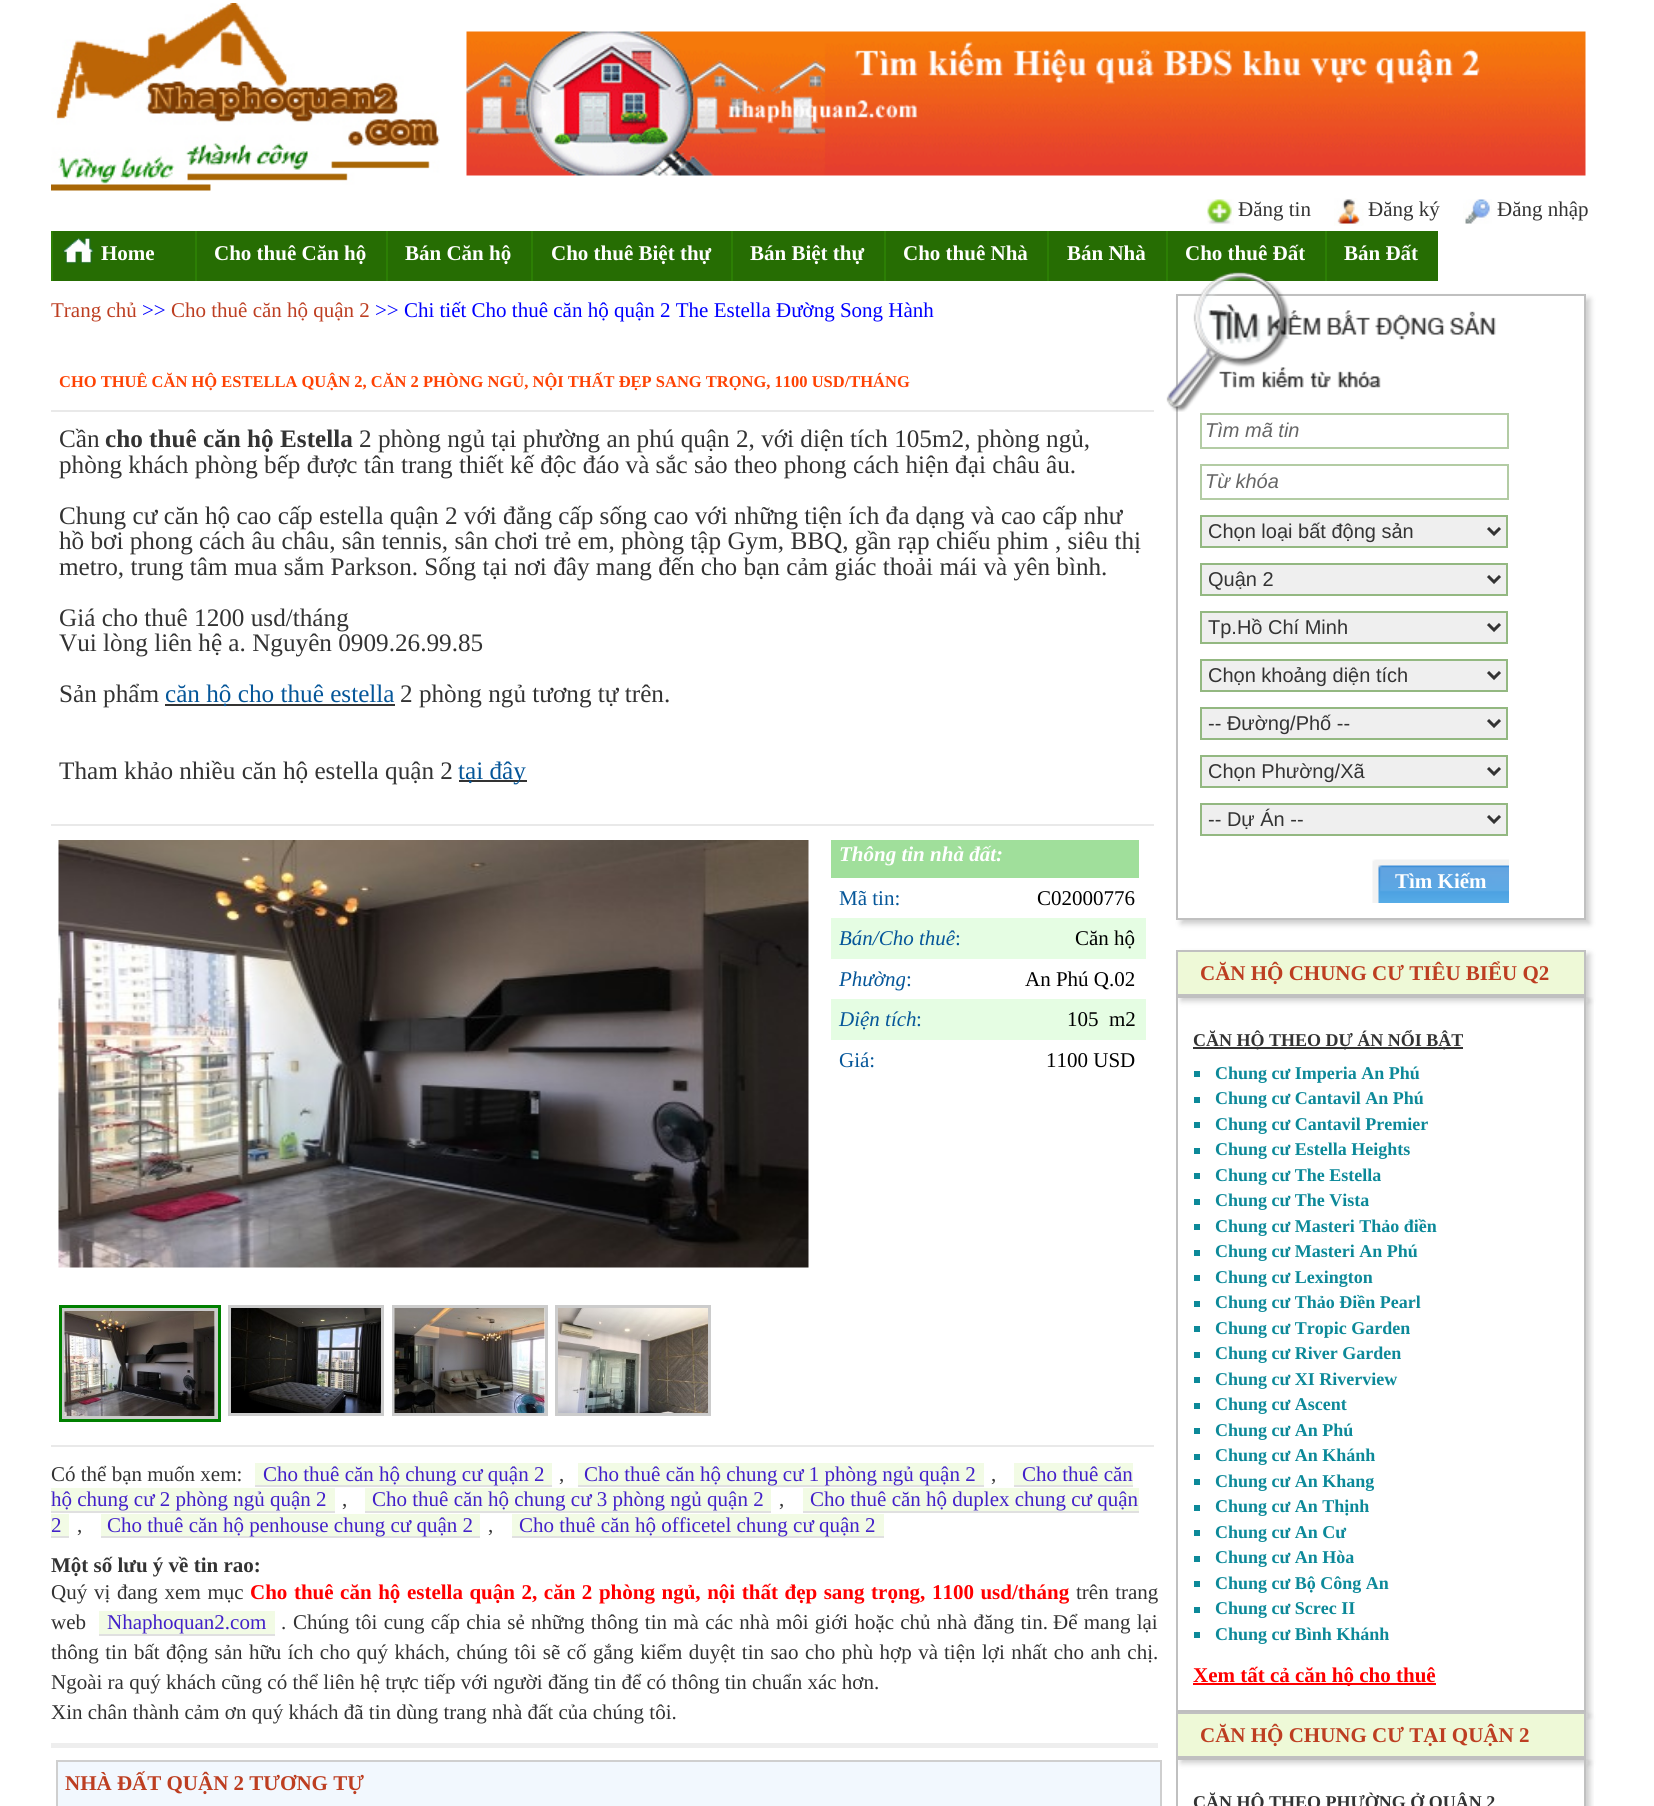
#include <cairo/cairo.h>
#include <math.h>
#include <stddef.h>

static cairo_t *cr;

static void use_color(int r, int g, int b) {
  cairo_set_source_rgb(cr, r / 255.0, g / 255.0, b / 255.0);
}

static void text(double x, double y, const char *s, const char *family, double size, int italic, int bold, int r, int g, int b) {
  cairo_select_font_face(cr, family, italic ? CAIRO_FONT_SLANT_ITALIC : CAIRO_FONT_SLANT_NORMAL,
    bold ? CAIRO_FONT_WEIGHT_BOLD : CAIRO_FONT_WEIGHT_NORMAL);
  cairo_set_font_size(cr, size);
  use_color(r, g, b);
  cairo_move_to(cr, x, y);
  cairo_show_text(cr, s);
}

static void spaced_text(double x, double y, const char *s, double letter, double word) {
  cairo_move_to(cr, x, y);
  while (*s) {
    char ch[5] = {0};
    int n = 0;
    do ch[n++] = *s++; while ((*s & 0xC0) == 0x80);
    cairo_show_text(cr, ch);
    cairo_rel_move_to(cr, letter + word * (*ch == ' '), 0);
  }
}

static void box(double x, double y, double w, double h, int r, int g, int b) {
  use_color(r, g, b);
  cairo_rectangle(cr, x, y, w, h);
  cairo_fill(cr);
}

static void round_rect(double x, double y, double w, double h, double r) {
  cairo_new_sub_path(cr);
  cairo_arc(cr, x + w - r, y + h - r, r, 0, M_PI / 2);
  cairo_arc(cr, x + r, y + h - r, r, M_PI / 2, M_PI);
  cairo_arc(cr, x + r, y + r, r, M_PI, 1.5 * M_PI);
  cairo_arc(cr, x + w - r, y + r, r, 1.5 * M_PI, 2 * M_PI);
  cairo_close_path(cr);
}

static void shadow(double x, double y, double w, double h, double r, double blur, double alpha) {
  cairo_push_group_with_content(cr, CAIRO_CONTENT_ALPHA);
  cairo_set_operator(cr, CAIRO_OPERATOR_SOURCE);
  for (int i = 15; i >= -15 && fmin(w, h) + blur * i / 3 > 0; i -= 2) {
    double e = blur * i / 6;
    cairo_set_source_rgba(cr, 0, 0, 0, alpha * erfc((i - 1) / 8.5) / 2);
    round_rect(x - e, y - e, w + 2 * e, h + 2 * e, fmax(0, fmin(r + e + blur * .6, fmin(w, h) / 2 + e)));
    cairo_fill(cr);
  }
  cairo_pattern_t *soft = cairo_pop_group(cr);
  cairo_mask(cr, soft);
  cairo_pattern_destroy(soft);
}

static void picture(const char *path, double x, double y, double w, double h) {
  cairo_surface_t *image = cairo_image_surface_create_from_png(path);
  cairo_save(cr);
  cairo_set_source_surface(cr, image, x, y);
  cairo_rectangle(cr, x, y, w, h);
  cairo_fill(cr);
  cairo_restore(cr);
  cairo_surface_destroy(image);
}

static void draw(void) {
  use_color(255, 255, 255);
  cairo_paint(cr);
  picture("img_01.png", 51, 3, 389, 188);
  picture("img_02.png", 466, 31, 1120, 145);
  picture("img_03.png", 1207, 199, 27, 26);
  picture("img_04.png", 1334, 198, 30, 28);
  picture("img_05.png", 1463, 199, 29, 25);
  box(53, 231, 142, 50, 38, 109, 3);
  box(51, 231, 2, 50, 44, 127, 4);
  picture("img_06.png", 63, 237, 31, 27);
  box(197, 231, 189, 50, 38, 109, 3);
  box(195, 231, 2, 50, 44, 127, 4);
  box(388, 231, 143, 50, 38, 109, 3);
  box(386, 231, 2, 50, 44, 127, 4);
  box(533, 231, 198, 50, 38, 109, 3);
  box(531, 231, 2, 50, 44, 127, 4);
  box(733, 231, 151, 50, 38, 109, 3);
  box(731, 231, 2, 50, 44, 127, 4);
  box(886, 231, 161, 50, 38, 109, 3);
  box(884, 231, 2, 50, 44, 127, 4);
  box(1049, 231, 117, 50, 38, 109, 3);
  box(1047, 231, 2, 50, 44, 127, 4);
  box(1168, 231, 157, 50, 38, 109, 3);
  box(1166, 231, 2, 50, 44, 127, 4);
  box(1327, 231, 111, 50, 38, 109, 3);
  box(1325, 231, 2, 50, 44, 127, 4);
  box(51, 410, 1103, 2, 233, 233, 233);
  box(51, 824, 1103, 2, 233, 233, 233);
  box(165, 704, 230, 2, 51, 51, 51);
  box(459, 780, 68, 2, 51, 51, 51);
  box(51, 1445, 1103, 2, 233, 233, 233);
  picture("img_07.png", 58, 840, 751, 428);
  cairo_rectangle(cr, 60.5, 1306.5, 159, 114);
  use_color(0, 128, 0);
  cairo_set_line_width(cr, 3);
  cairo_stroke(cr);
  cairo_rectangle(cr, 63.5, 1309.5, 153, 108);
  use_color(204, 204, 204);
  cairo_stroke(cr);
  picture("img_08.png", 64, 1311, 151, 105);
  cairo_rectangle(cr, 229.5, 1306.5, 153, 108);
  cairo_stroke(cr);
  picture("img_09.png", 231, 1308, 150, 105);
  cairo_rectangle(cr, 393.5, 1306.5, 153, 108);
  cairo_stroke(cr);
  picture("img_10.png", 394, 1308, 151, 105);
  cairo_rectangle(cr, 556.5, 1306.5, 153, 108);
  cairo_stroke(cr);
  picture("img_11.png", 558, 1308, 150, 105);
  box(831, 840, 308, 38, 160, 223, 155);
  box(831, 918, 315, 41, 229, 253, 227);
  box(831, 999, 315, 41, 229, 253, 227);
  box(51, 1743, 1107, 5, 238, 238, 238);
  box(255, 1463, 297, 22, 242, 251, 229);
  box(255, 1485, 297, 2, 224, 224, 224);
  box(578, 1463, 406, 22, 242, 251, 229);
  box(578, 1485, 406, 2, 224, 224, 224);
  box(1014, 1463, 119, 22, 242, 251, 229);
  box(1014, 1485, 119, 2, 224, 224, 224);
  box(51, 1488, 284, 23, 242, 251, 229);
  box(51, 1511, 284, 2, 224, 224, 224);
  box(365, 1488, 406, 23, 242, 251, 229);
  box(365, 1511, 406, 2, 224, 224, 224);
  box(803, 1488, 336, 23, 242, 251, 229);
  box(803, 1511, 336, 2, 224, 224, 224);
  box(51, 1514, 18, 22, 242, 251, 229);
  box(51, 1536, 18, 2, 224, 224, 224);
  box(101, 1514, 379, 22, 242, 251, 229);
  box(101, 1536, 379, 2, 224, 224, 224);
  box(512, 1514, 372, 22, 242, 251, 229);
  box(512, 1536, 372, 2, 224, 224, 224);
  box(99, 1611, 176, 23, 242, 251, 229);
  box(99, 1634, 176, 2, 224, 224, 224);
  box(58, 1762, 1102, 44, 242, 248, 254);
  box(56, 1760, 1105, 2, 207, 207, 207);
  box(1160, 1760, 2, 46, 207, 207, 207);
  box(56, 1760, 2, 46, 207, 207, 207);
  cairo_save(cr);
  cairo_set_fill_rule(cr, CAIRO_FILL_RULE_EVEN_ODD);
  cairo_new_path(cr);
  cairo_move_to(cr, 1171, 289);
  cairo_line_to(cr, 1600, 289);
  cairo_line_to(cr, 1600, 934);
  cairo_line_to(cr, 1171, 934);
  cairo_close_path(cr);
  cairo_move_to(cr, 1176, 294);
  cairo_line_to(cr, 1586, 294);
  cairo_line_to(cr, 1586, 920);
  cairo_line_to(cr, 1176, 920);
  cairo_close_path(cr);
  cairo_clip(cr);
  use_color(0, 0, 0);
  shadow(1181, 299, 409, 625, 0, 3, 0.2);
  cairo_restore(cr);
  cairo_rectangle(cr, 1177, 295, 408, 624);
  use_color(192, 192, 192);
  cairo_set_line_width(cr, 2);
  cairo_stroke(cr);
  picture("img_12.png", 1166, 271, 330, 141);
  cairo_rectangle(cr, 1201, 414, 307, 34);
  use_color(179, 204, 164);
  cairo_stroke(cr);
  cairo_rectangle(cr, 1201, 465, 307, 34);
  cairo_stroke(cr);
  use_color(239, 239, 239);
  cairo_rectangle(cr, 1201, 516, 306, 31);
  cairo_fill_preserve(cr);
  use_color(147, 184, 129);
  cairo_stroke(cr);
  cairo_new_path(cr);
  cairo_move_to(cr, 1488, 528);
  cairo_line_to(cr, 1494, 534);
  cairo_line_to(cr, 1500, 528);
  use_color(51, 51, 51);
  cairo_set_line_width(cr, 3);
  cairo_stroke(cr);
  use_color(239, 239, 239);
  cairo_rectangle(cr, 1201, 564, 306, 31);
  cairo_fill_preserve(cr);
  use_color(147, 184, 129);
  cairo_set_line_width(cr, 2);
  cairo_stroke(cr);
  cairo_new_path(cr);
  cairo_move_to(cr, 1488, 576);
  cairo_line_to(cr, 1494, 582);
  cairo_line_to(cr, 1500, 576);
  use_color(51, 51, 51);
  cairo_set_line_width(cr, 3);
  cairo_stroke(cr);
  use_color(239, 239, 239);
  cairo_rectangle(cr, 1201, 612, 306, 31);
  cairo_fill_preserve(cr);
  use_color(147, 184, 129);
  cairo_set_line_width(cr, 2);
  cairo_stroke(cr);
  cairo_new_path(cr);
  cairo_move_to(cr, 1488, 624);
  cairo_line_to(cr, 1494, 630);
  cairo_line_to(cr, 1500, 624);
  use_color(51, 51, 51);
  cairo_set_line_width(cr, 3);
  cairo_stroke(cr);
  use_color(239, 239, 239);
  cairo_rectangle(cr, 1201, 660, 306, 31);
  cairo_fill_preserve(cr);
  use_color(147, 184, 129);
  cairo_set_line_width(cr, 2);
  cairo_stroke(cr);
  cairo_new_path(cr);
  cairo_move_to(cr, 1488, 672);
  cairo_line_to(cr, 1494, 678);
  cairo_line_to(cr, 1500, 672);
  use_color(51, 51, 51);
  cairo_set_line_width(cr, 3);
  cairo_stroke(cr);
  use_color(239, 239, 239);
  cairo_rectangle(cr, 1201, 708, 306, 31);
  cairo_fill_preserve(cr);
  use_color(147, 184, 129);
  cairo_set_line_width(cr, 2);
  cairo_stroke(cr);
  cairo_new_path(cr);
  cairo_move_to(cr, 1488, 720);
  cairo_line_to(cr, 1494, 726);
  cairo_line_to(cr, 1500, 720);
  use_color(51, 51, 51);
  cairo_set_line_width(cr, 3);
  cairo_stroke(cr);
  use_color(239, 239, 239);
  cairo_rectangle(cr, 1201, 756, 306, 31);
  cairo_fill_preserve(cr);
  use_color(147, 184, 129);
  cairo_set_line_width(cr, 2);
  cairo_stroke(cr);
  cairo_new_path(cr);
  cairo_move_to(cr, 1488, 768);
  cairo_line_to(cr, 1494, 774);
  cairo_line_to(cr, 1500, 768);
  use_color(51, 51, 51);
  cairo_set_line_width(cr, 3);
  cairo_stroke(cr);
  use_color(239, 239, 239);
  cairo_rectangle(cr, 1201, 804, 306, 31);
  cairo_fill_preserve(cr);
  use_color(147, 184, 129);
  cairo_set_line_width(cr, 2);
  cairo_stroke(cr);
  cairo_new_path(cr);
  cairo_move_to(cr, 1488, 816);
  cairo_line_to(cr, 1494, 822);
  cairo_line_to(cr, 1500, 816);
  use_color(51, 51, 51);
  cairo_set_line_width(cr, 3);
  cairo_stroke(cr);
  picture("img_13.png", 1372, 859, 137, 44);
  use_color(0, 0, 0);
  shadow(1181, 954, 409, 47, 0, 3, 0.2);
  use_color(238, 249, 215);
  cairo_rectangle(cr, 1177, 951, 408, 44);
  cairo_fill_preserve(cr);
  use_color(192, 192, 192);
  cairo_set_line_width(cr, 2);
  cairo_stroke(cr);
  cairo_save(cr);
  cairo_rectangle(cr, 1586, 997, 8, 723);
  cairo_clip(cr);
  use_color(0, 0, 0);
  shadow(1181, 1001, 409, 715, 0, 3, 0.2);
  cairo_restore(cr);
  cairo_rectangle(cr, 1177, 997, 408, 714);
  cairo_stroke(cr);
  box(1193, 1047, 270, 2, 51, 51, 51);
  box(1194, 1071, 6, 6, 12, 137, 153);
  box(1194, 1097, 6, 6, 12, 137, 153);
  box(1194, 1122, 6, 6, 12, 137, 153);
  box(1194, 1148, 6, 6, 12, 137, 153);
  box(1194, 1173, 6, 6, 12, 137, 153);
  box(1194, 1199, 6, 6, 12, 137, 153);
  box(1194, 1224, 6, 6, 12, 137, 153);
  box(1194, 1250, 6, 6, 12, 137, 153);
  box(1194, 1275, 6, 6, 12, 137, 153);
  box(1194, 1301, 6, 6, 12, 137, 153);
  box(1194, 1326, 6, 6, 12, 137, 153);
  box(1194, 1352, 6, 6, 12, 137, 153);
  box(1194, 1377, 6, 6, 12, 137, 153);
  box(1194, 1403, 6, 6, 12, 137, 153);
  box(1194, 1428, 6, 6, 12, 137, 153);
  box(1194, 1454, 6, 6, 12, 137, 153);
  box(1194, 1479, 6, 6, 12, 137, 153);
  box(1194, 1505, 6, 6, 12, 137, 153);
  box(1194, 1530, 6, 6, 12, 137, 153);
  box(1194, 1556, 6, 6, 12, 137, 153);
  box(1194, 1581, 6, 6, 12, 137, 153);
  box(1194, 1607, 6, 6, 12, 137, 153);
  box(1194, 1632, 6, 6, 12, 137, 153);
  box(1193, 1683, 243, 2, 255, 0, 0);
  use_color(0, 0, 0);
  shadow(1181, 1716, 409, 47, 0, 3, 0.2);
  use_color(238, 249, 215);
  cairo_rectangle(cr, 1177, 1713, 408, 44);
  cairo_fill_preserve(cr);
  use_color(192, 192, 192);
  cairo_stroke(cr);
  cairo_save(cr);
  cairo_rectangle(cr, 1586, 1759, 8, 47);
  cairo_clip(cr);
  use_color(0, 0, 0);
  shadow(1181, 1763, 409, 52, 0, 3, 0.2);
  cairo_restore(cr);
  cairo_rectangle(cr, 1177, 1759, 408, 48);
  cairo_stroke(cr);
  text(1238, 216, "Đăng tin", "Liberation Serif", 21, 0, 0, 51, 51, 51);
  text(1368, 216, "Đăng ký", "Liberation Serif", 21, 0, 0, 51, 51, 51);
  text(1497, 216, "Đăng nhập", "Liberation Serif", 21, 0, 0, 51, 51, 51);
  text(101, 260, "Home", "Liberation Serif", 21, 0, 1, 255, 255, 255);
  text(214, 260, "Cho thuê Căn hộ", "Liberation Serif", 21, 0, 1, 255, 255, 255);
  text(405, 260, "Bán Căn hộ", "Liberation Serif", 21, 0, 1, 255, 255, 255);
  text(551, 260, "Cho thuê Biệt thự", "Liberation Serif", 21, 0, 1, 255, 255, 255);
  text(750, 260, "Bán Biệt thự", "Liberation Serif", 21, 0, 1, 255, 255, 255);
  text(903, 260, "Cho thuê Nhà", "Liberation Serif", 21, 0, 1, 255, 255, 255);
  text(1067, 260, "Bán Nhà", "Liberation Serif", 21, 0, 1, 255, 255, 255);
  text(1185, 260, "Cho thuê Đất", "Liberation Serif", 21, 0, 1, 255, 255, 255);
  text(1344, 260, "Bán Đất", "Liberation Serif", 21, 0, 1, 255, 255, 255);
  text(51, 317, "Trang chủ", "Liberation Serif", 21, 0, 0, 189, 62, 33);
  text(142, 317, ">>", "Liberation Serif", 21, 0, 0, 0, 0, 255);
  text(171, 317, "Cho thuê căn hộ quận 2", "Liberation Serif", 21, 0, 0, 189, 62, 33);
  text(375, 317, ">> Chi tiết Cho thuê căn hộ quận 2 The Estella Đường Song Hành", "Liberation Serif", 21, 0, 0, 0, 0, 255);
  text(59, 387, "CHO THUÊ CĂN HỘ ESTELLA QUẬN 2, CĂN 2 PHÒNG NGỦ, NỘI THẤT ĐẸP SANG TRỌNG, 1100 USD/THÁNG", "Liberation Serif", 16.5, 0, 1, 254, 66, 3);
  text(59, 447, "Cần", "Liberation Serif", 25.2, 0, 0, 51, 51, 51);
  text(105, 447, "cho thuê căn hộ Estella", "Liberation Serif", 25.2, 0, 1, 51, 51, 51);
  text(359, 447, "2 phòng ngủ tại phường an phú quận 2, với diện tích 105m2, phòng ngủ,", "Liberation Serif", 25.2, 0, 0, 51, 51, 51);
  text(59, 473, "phòng khách phòng bếp được tân trang thiết kế độc đáo và sắc sảo theo phong cách hiện đại châu âu.", "Liberation Serif", 25.2, 0, 0, 51, 51, 51);
  text(59, 524, "Chung cư căn hộ cao cấp estella quận 2 với đẳng cấp sống cao với những tiện ích đa dạng và cao cấp như", "Liberation Serif", 25.2, 0, 0, 51, 51, 51);
  text(59, 549, "hồ bơi phong cách âu châu, sân tennis, sân chơi trẻ em, phòng tập Gym, BBQ, gần rạp chiếu phim , siêu thị", "Liberation Serif", 25.2, 0, 0, 51, 51, 51);
  text(59, 575, "metro, trung tâm mua sắm Parkson. Sống tại nơi đây mang đến cho bạn cảm giác thoải mái và yên bình.", "Liberation Serif", 25.2, 0, 0, 51, 51, 51);
  text(59, 626, "Giá cho thuê 1200 usd/tháng", "Liberation Serif", 25.2, 0, 0, 51, 51, 51);
  text(59, 651, "Vui lòng liên hệ a. Nguyên 0909.26.99.85", "Liberation Serif", 25.2, 0, 0, 51, 51, 51);
  text(59, 702, "Sản phẩm", "Liberation Serif", 25.2, 0, 0, 51, 51, 51);
  text(165, 702, "căn hộ cho thuê estella", "Liberation Serif", 25.2, 0, 0, 5, 86, 153);
  text(400, 702, "2 phòng ngủ tương tự trên.", "Liberation Serif", 25.2, 0, 0, 51, 51, 51);
  text(59, 779, "Tham khảo nhiều căn hộ estella quận 2", "Liberation Serif", 25.2, 0, 0, 51, 51, 51);
  text(458, 779, "tại đây", "Liberation Serif", 25.2, 0, 0, 5, 86, 153);
  text(839, 861, "Thông tin nhà đất:", "Liberation Serif", 21, 1, 1, 255, 255, 255);
  text(839, 905, "Mã tin:", "Liberation Serif", 21, 0, 0, 5, 86, 153);
  text(1037, 905, "C02000776", "Liberation Serif", 21, 0, 0, 0, 0, 0);
  text(839, 945, "Bán/Cho thuê", "Liberation Serif", 21, 1, 0, 5, 86, 153);
  text(955, 945, ":", "Liberation Serif", 21, 0, 0, 5, 86, 153);
  text(1075, 945, "Căn hộ", "Liberation Serif", 21, 0, 0, 0, 0, 0);
  text(839, 986, "Phường", "Liberation Serif", 21, 1, 0, 5, 86, 153);
  text(906, 986, ":", "Liberation Serif", 21, 0, 0, 5, 86, 153);
  text(1025, 986, "An Phú Q.02", "Liberation Serif", 21, 0, 0, 0, 0, 0);
  text(839, 1026, "Diện tích", "Liberation Serif", 21, 1, 0, 5, 86, 153);
  text(916, 1026, ":", "Liberation Serif", 21, 0, 0, 5, 86, 153);
  text(1067, 1026, "105  m2", "Liberation Serif", 21, 0, 0, 0, 0, 0);
  text(839, 1067, "Giá:", "Liberation Serif", 21, 0, 0, 5, 86, 153);
  text(1046, 1067, "1100 USD", "Liberation Serif", 21, 0, 0, 0, 0, 0);
  text(51, 1481, "Có thể bạn muốn xem:", "Liberation Serif", 21, 0, 0, 51, 51, 51);
  text(263, 1481, "Cho thuê căn hộ chung cư quận 2", "Liberation Serif", 21, 0, 0, 66, 32, 201);
  text(559, 1481, ",", "Liberation Serif", 21, 0, 0, 51, 51, 51);
  text(584, 1481, "Cho thuê căn hộ chung cư 1 phòng ngủ quận 2", "Liberation Serif", 21, 0, 0, 66, 32, 201);
  text(991, 1481, ",", "Liberation Serif", 21, 0, 0, 51, 51, 51);
  text(1022, 1481, "Cho thuê căn", "Liberation Serif", 21, 0, 0, 66, 32, 201);
  text(51, 1506, "hộ chung cư 2 phòng ngủ quận 2", "Liberation Serif", 21, 0, 0, 66, 32, 201);
  text(342, 1506, ",", "Liberation Serif", 21, 0, 0, 51, 51, 51);
  text(372, 1506, "Cho thuê căn hộ chung cư 3 phòng ngủ quận 2", "Liberation Serif", 21, 0, 0, 66, 32, 201);
  text(779, 1506, ",", "Liberation Serif", 21, 0, 0, 51, 51, 51);
  text(810, 1506, "Cho thuê căn hộ duplex chung cư quận", "Liberation Serif", 21, 0, 0, 66, 32, 201);
  text(51, 1532, "2", "Liberation Serif", 21, 0, 0, 66, 32, 201);
  text(77, 1532, ",", "Liberation Serif", 21, 0, 0, 51, 51, 51);
  text(107, 1532, "Cho thuê căn hộ penhouse chung cư quận 2", "Liberation Serif", 21, 0, 0, 66, 32, 201);
  text(488, 1532, ",", "Liberation Serif", 21, 0, 0, 51, 51, 51);
  text(519, 1532, "Cho thuê căn hộ officetel chung cư quận 2", "Liberation Serif", 21, 0, 0, 66, 32, 201);
  text(51, 1572, "Một số lưu ý về tin rao:", "Liberation Serif", 21, 0, 1, 51, 51, 51);
  cairo_select_font_face(cr, "Liberation Serif", CAIRO_FONT_SLANT_NORMAL, CAIRO_FONT_WEIGHT_NORMAL);
  spaced_text(51, 1599, "Quý vị đang xem mục", 0, 1.5);
  cairo_select_font_face(cr, "Liberation Serif", CAIRO_FONT_SLANT_NORMAL, CAIRO_FONT_WEIGHT_BOLD);
  use_color(255, 0, 0);
  spaced_text(250, 1599, "Cho thuê căn hộ estella quận 2, căn 2 phòng ngủ, nội thất đẹp sang trọng, 1100 usd/tháng", 0, 1.3);
  cairo_select_font_face(cr, "Liberation Serif", CAIRO_FONT_SLANT_NORMAL, CAIRO_FONT_WEIGHT_NORMAL);
  use_color(51, 51, 51);
  spaced_text(1076, 1599, "trên trang", 0, 1.3);
  text(51, 1629, "web", "Liberation Serif", 21, 0, 0, 51, 51, 51);
  text(107, 1629, "Nhaphoquan2.com", "Liberation Serif", 21, 0, 0, 66, 32, 201);
  text(281, 1629, ".", "Liberation Serif", 21, 0, 0, 51, 51, 51);
  spaced_text(293, 1629, "Chúng tôi cung cấp chia sẻ những thông tin mà các nhà môi giới hoặc chủ nhà đăng tin.", 0, 1);
  spaced_text(1053, 1629, "Để mang lại", 0, 1);
  spaced_text(51, 1659, "thông tin bất động sản hữu ích cho quý khách, chúng tôi sẽ cố gắng kiểm duyệt tin sao cho phù hợp và", 0, 1.2);
  spaced_text(944, 1659, "tiện lợi nhất cho anh chị.", 0, 1.2);
  text(51, 1689, "Ngoài ra quý khách cũng có thể liên hệ trực tiếp với người đăng tin để có thông tin chuẩn xác hơn.", "Liberation Serif", 21, 0, 0, 51, 51, 51);
  text(51, 1719, "Xin chân thành cảm ơn quý khách đã tin dùng trang nhà đất của chúng tôi.", "Liberation Serif", 21, 0, 0, 51, 51, 51);
  text(65, 1790, "NHÀ ĐẤT QUẬN 2 TƯƠNG TỰ", "Liberation Serif", 21, 0, 1, 189, 62, 33);
  text(1205, 437, "Tìm mã tin", "Liberation Sans", 20, 1, 0, 102, 102, 102);
  text(1205, 488, "Từ khóa", "Liberation Sans", 20, 1, 0, 102, 102, 102);
  text(1208, 538, "Chọn loại bất động sản", "Liberation Sans", 20, 0, 0, 51, 51, 51);
  text(1208, 586, "Quận 2", "Liberation Sans", 20, 0, 0, 51, 51, 51);
  text(1208, 634, "Tp.Hồ Chí Minh", "Liberation Sans", 20, 0, 0, 51, 51, 51);
  text(1208, 682, "Chọn khoảng diện tích", "Liberation Sans", 20, 0, 0, 51, 51, 51);
  text(1208, 730, "-- Đường/Phố --", "Liberation Sans", 20, 0, 0, 51, 51, 51);
  text(1208, 778, "Chọn Phường/Xã", "Liberation Sans", 20, 0, 0, 51, 51, 51);
  text(1208, 826, "-- Dự Án --", "Liberation Sans", 20, 0, 0, 51, 51, 51);
  text(1395, 888, "Tìm Kiếm", "Liberation Serif", 21, 0, 1, 255, 255, 255);
  text(1200, 980, "CĂN HỘ CHUNG CƯ TIÊU BIỂU Q2", "Liberation Serif", 21, 0, 1, 189, 62, 33);
  text(1193, 1046, "CĂN HỘ THEO DỰ ÁN NỔI BẬT", "Liberation Serif", 18, 0, 1, 51, 51, 51);
  text(1215, 1079, "Chung cư Imperia An Phú", "Liberation Serif", 18, 0, 1, 12, 137, 153);
  text(1215, 1104, "Chung cư Cantavil An Phú", "Liberation Serif", 18, 0, 1, 12, 137, 153);
  text(1215, 1130, "Chung cư Cantavil Premier", "Liberation Serif", 18, 0, 1, 12, 137, 153);
  text(1215, 1155, "Chung cư Estella Heights", "Liberation Serif", 18, 0, 1, 12, 137, 153);
  text(1215, 1181, "Chung cư The Estella", "Liberation Serif", 18, 0, 1, 12, 137, 153);
  text(1215, 1206, "Chung cư The Vista", "Liberation Serif", 18, 0, 1, 12, 137, 153);
  text(1215, 1232, "Chung cư Masteri Thảo điền", "Liberation Serif", 18, 0, 1, 12, 137, 153);
  text(1215, 1257, "Chung cư Masteri An Phú", "Liberation Serif", 18, 0, 1, 12, 137, 153);
  text(1215, 1283, "Chung cư Lexington", "Liberation Serif", 18, 0, 1, 12, 137, 153);
  text(1215, 1308, "Chung cư Thảo Điền Pearl", "Liberation Serif", 18, 0, 1, 12, 137, 153);
  text(1215, 1334, "Chung cư Tropic Garden", "Liberation Serif", 18, 0, 1, 12, 137, 153);
  text(1215, 1359, "Chung cư River Garden", "Liberation Serif", 18, 0, 1, 12, 137, 153);
  text(1215, 1385, "Chung cư XI Riverview", "Liberation Serif", 18, 0, 1, 12, 137, 153);
  text(1215, 1410, "Chung cư Ascent", "Liberation Serif", 18, 0, 1, 12, 137, 153);
  text(1215, 1436, "Chung cư An Phú", "Liberation Serif", 18, 0, 1, 12, 137, 153);
  text(1215, 1461, "Chung cư An Khánh", "Liberation Serif", 18, 0, 1, 12, 137, 153);
  text(1215, 1487, "Chung cư An Khang", "Liberation Serif", 18, 0, 1, 12, 137, 153);
  text(1215, 1512, "Chung cư An Thịnh", "Liberation Serif", 18, 0, 1, 12, 137, 153);
  text(1215, 1538, "Chung cư An Cư", "Liberation Serif", 18, 0, 1, 12, 137, 153);
  text(1215, 1563, "Chung cư An Hòa", "Liberation Serif", 18, 0, 1, 12, 137, 153);
  text(1215, 1589, "Chung cư Bộ Công An", "Liberation Serif", 18, 0, 1, 12, 137, 153);
  text(1215, 1614, "Chung cư Screc II", "Liberation Serif", 18, 0, 1, 12, 137, 153);
  text(1215, 1640, "Chung cư Bình Khánh", "Liberation Serif", 18, 0, 1, 12, 137, 153);
  text(1193, 1682, "Xem tất cả căn hộ cho thuê", "Liberation Serif", 21, 0, 1, 255, 0, 0);
  text(1200, 1742, "CĂN HỘ CHUNG CƯ TẠI QUẬN 2", "Liberation Serif", 21, 0, 1, 189, 62, 33);
  text(1193, 1808, "CĂN HỘ THEO PHƯỜNG Ở QUẬN 2", "Liberation Serif", 18, 0, 1, 51, 51, 51);
}

int main(void) {
  cairo_surface_t *surface = cairo_image_surface_create(CAIRO_FORMAT_RGB24, 1654, 1806);
  cr = cairo_create(surface);
  cairo_font_options_t *options = cairo_font_options_create();
  cairo_font_options_set_hint_metrics(options, CAIRO_HINT_METRICS_OFF);
  cairo_font_options_set_hint_style(options, CAIRO_HINT_STYLE_NONE);
  cairo_set_font_options(cr, options);
  cairo_set_miter_limit(cr, 4);
  draw();
  cairo_surface_write_to_png(surface, "out.png");
  cairo_font_options_destroy(options);
  cairo_destroy(cr);
  cairo_surface_destroy(surface);
  return 0;
}
